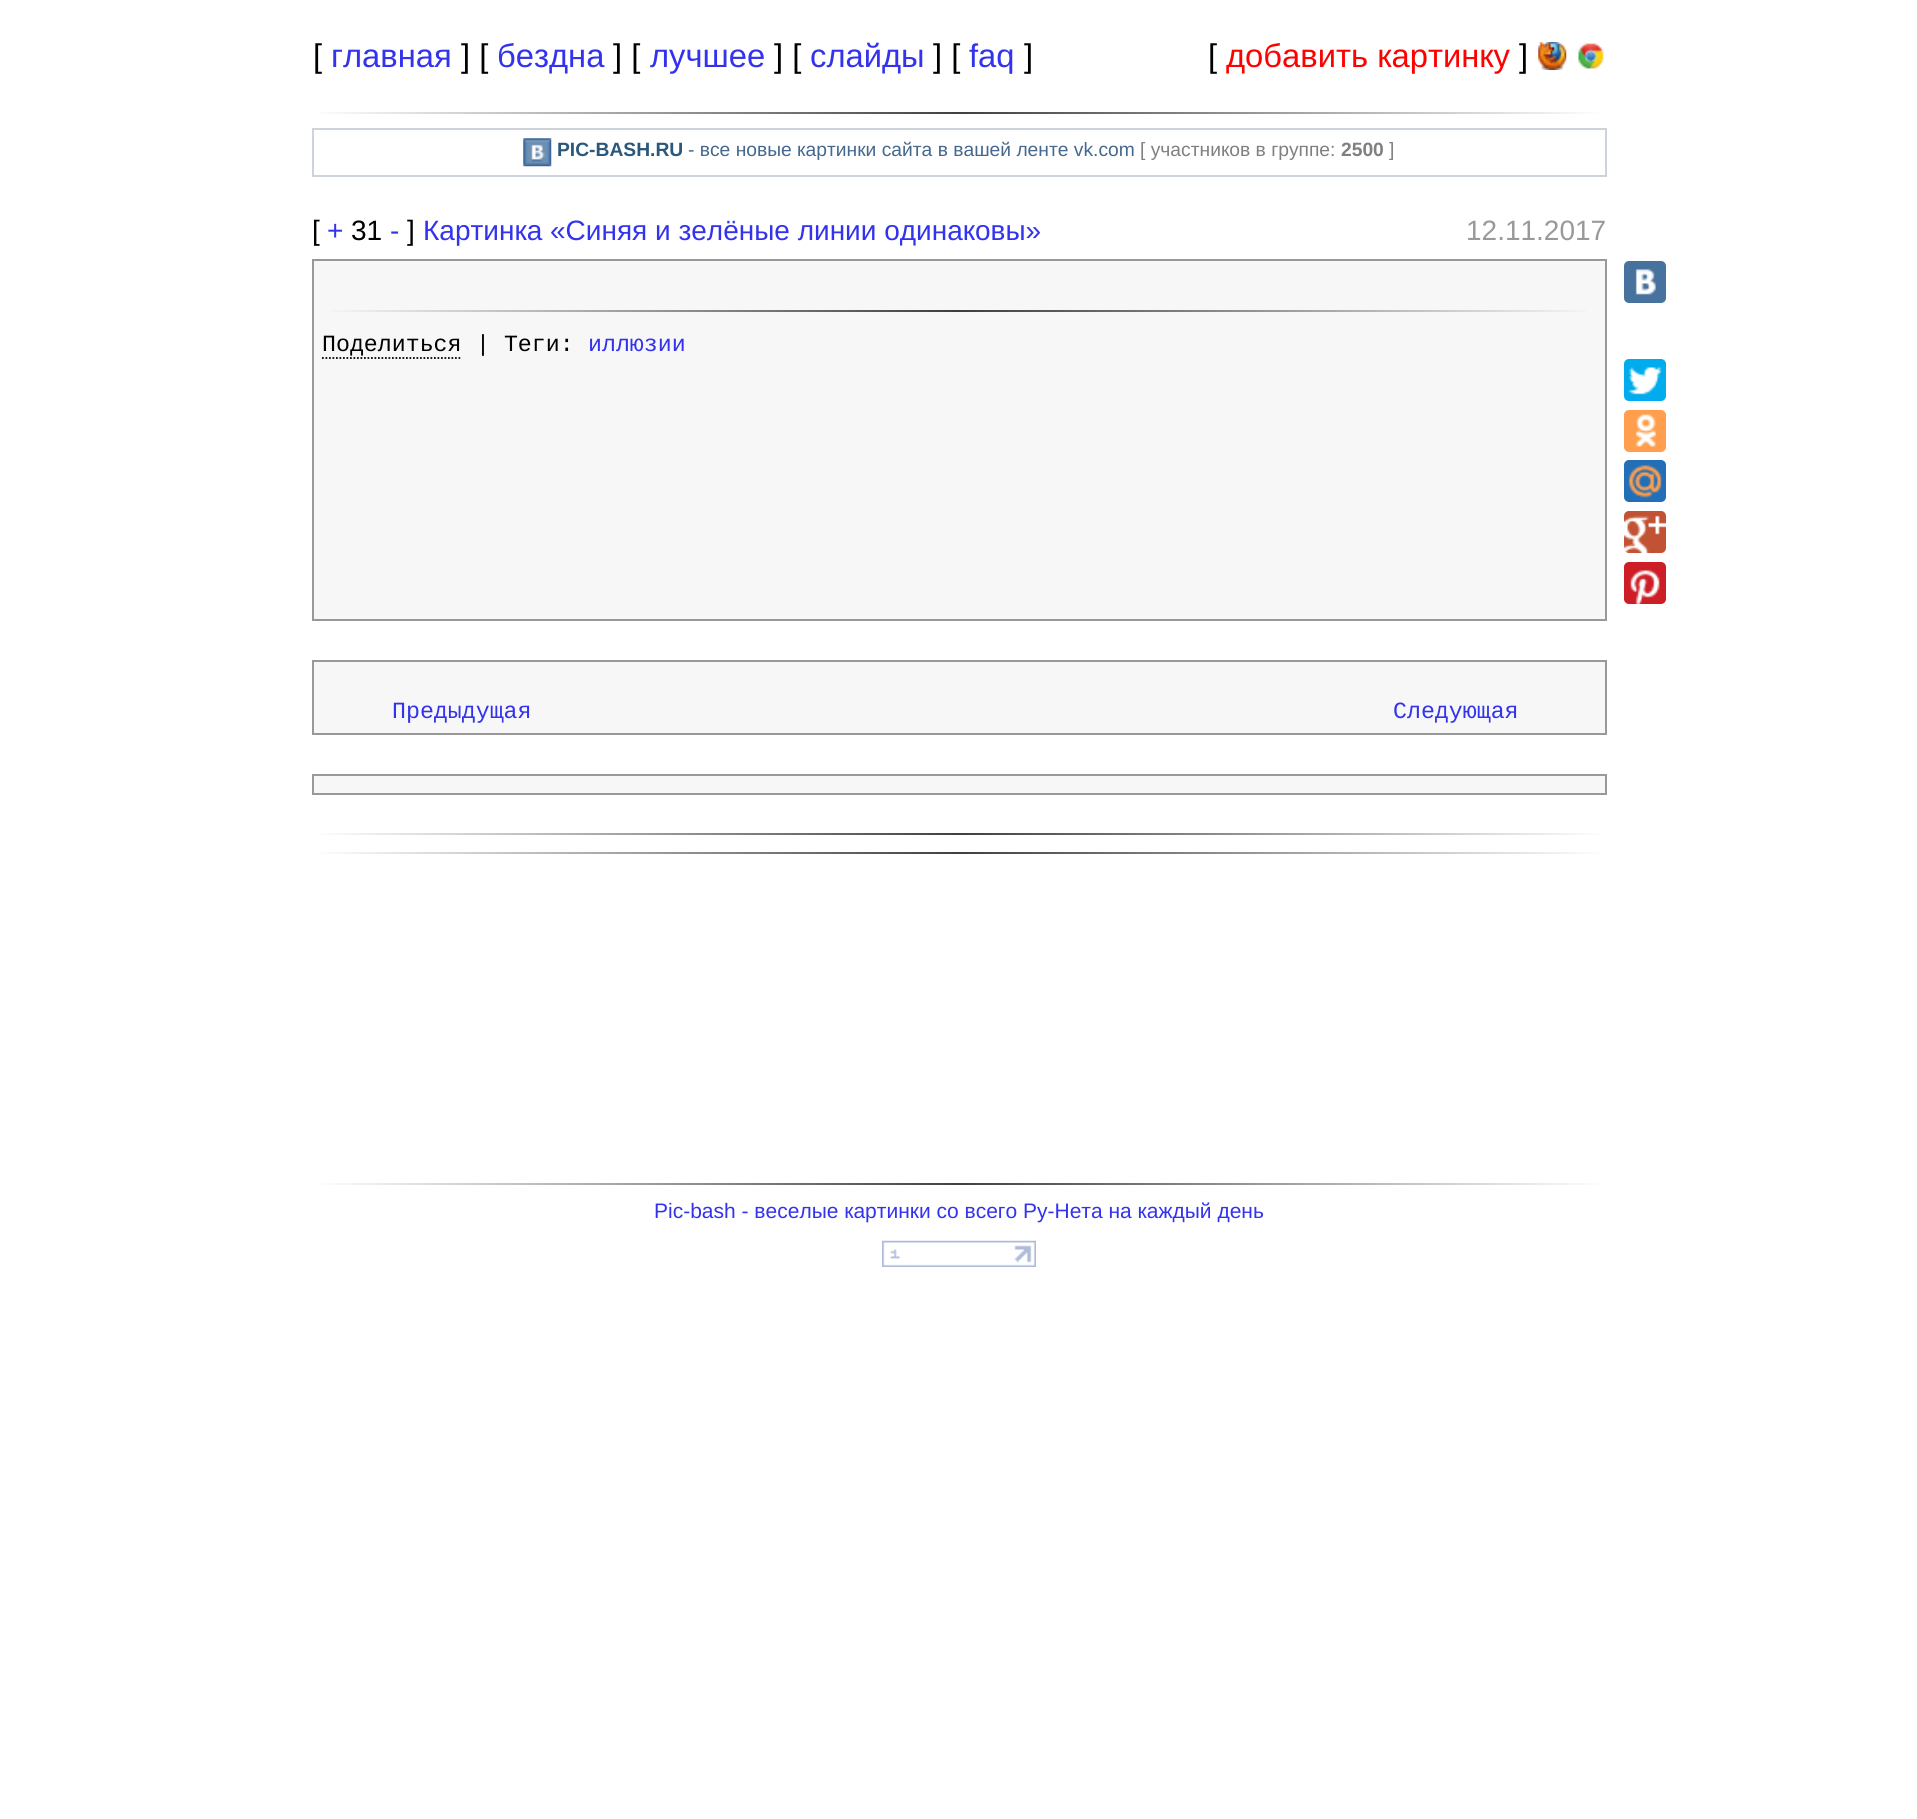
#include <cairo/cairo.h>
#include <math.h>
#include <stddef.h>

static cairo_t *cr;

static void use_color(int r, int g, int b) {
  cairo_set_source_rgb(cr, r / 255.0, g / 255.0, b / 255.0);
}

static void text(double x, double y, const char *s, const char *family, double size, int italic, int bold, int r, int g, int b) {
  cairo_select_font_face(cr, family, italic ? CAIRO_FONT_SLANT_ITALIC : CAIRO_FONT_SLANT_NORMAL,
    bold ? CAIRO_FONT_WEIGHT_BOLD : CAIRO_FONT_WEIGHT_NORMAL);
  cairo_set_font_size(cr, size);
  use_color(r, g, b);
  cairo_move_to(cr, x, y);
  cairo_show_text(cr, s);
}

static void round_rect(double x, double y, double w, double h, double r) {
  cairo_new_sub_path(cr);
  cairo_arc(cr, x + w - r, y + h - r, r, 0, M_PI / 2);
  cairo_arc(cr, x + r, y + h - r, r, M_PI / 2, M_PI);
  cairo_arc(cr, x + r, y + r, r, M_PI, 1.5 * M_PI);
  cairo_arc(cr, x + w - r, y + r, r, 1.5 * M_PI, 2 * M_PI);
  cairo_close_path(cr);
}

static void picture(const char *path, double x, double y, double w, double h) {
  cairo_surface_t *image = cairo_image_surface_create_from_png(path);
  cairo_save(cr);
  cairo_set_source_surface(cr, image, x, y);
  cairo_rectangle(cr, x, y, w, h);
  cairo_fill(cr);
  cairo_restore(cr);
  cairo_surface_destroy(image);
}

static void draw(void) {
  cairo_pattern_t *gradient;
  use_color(255, 255, 255);
  cairo_paint(cr);
  picture("img_01.png", 1538, 42, 29, 28);
  picture("img_02.png", 1578, 43, 26, 26);
  gradient = cairo_pattern_create_linear(312, 113, 1607, 113);
  cairo_pattern_add_color_stop_rgba(gradient, 0, 1, 1, 1, 1);
  cairo_pattern_add_color_stop_rgba(gradient, 0.5, 0.251, 0.251, 0.251, 1);
  cairo_pattern_add_color_stop_rgba(gradient, 1, 1, 1, 1, 1);
  cairo_set_source(cr, gradient);
  cairo_pattern_destroy(gradient);
  cairo_rectangle(cr, 312, 112, 1295, 2);
  cairo_fill(cr);
  cairo_rectangle(cr, 313, 129, 1293, 47);
  use_color(204, 211, 218);
  cairo_stroke(cr);
  picture("img_03.png", 523, 138, 29, 29);
  use_color(247, 247, 247);
  cairo_rectangle(cr, 313, 260, 1293, 360);
  cairo_fill_preserve(cr);
  use_color(153, 153, 153);
  cairo_stroke(cr);
  gradient = cairo_pattern_create_linear(322, 311, 1596, 311);
  cairo_pattern_add_color_stop_rgba(gradient, 0, 0.969, 0.969, 0.969, 1);
  cairo_pattern_add_color_stop_rgba(gradient, 0.5, 0.243, 0.243, 0.243, 1);
  cairo_pattern_add_color_stop_rgba(gradient, 1, 0.969, 0.969, 0.969, 1);
  cairo_set_source(cr, gradient);
  cairo_pattern_destroy(gradient);
  cairo_rectangle(cr, 331, 310, 1256, 2);
  cairo_fill(cr);
  cairo_new_path(cr);
  cairo_move_to(cr, 322, 358);
  cairo_line_to(cr, 462, 358);
  use_color(0, 0, 0);
  cairo_set_line_width(cr, 1.8);
  cairo_set_dash(cr, (double[]){1.75, 1.75}, 2, 0);
  cairo_stroke(cr);
  use_color(72, 114, 158);
  round_rect(1624, 261, 42, 42, 5);
  cairo_fill(cr);
  picture("img_04.png", 1635, 269, 21, 26);
  use_color(0, 172, 237);
  round_rect(1624, 359, 42, 42, 5);
  cairo_fill(cr);
  picture("img_05.png", 1628, 367, 34, 28);
  use_color(255, 159, 77);
  round_rect(1624, 410, 42, 42, 5);
  cairo_fill(cr);
  picture("img_06.png", 1635, 414, 21, 33);
  use_color(34, 110, 183);
  round_rect(1624, 460, 42, 42, 5);
  cairo_fill(cr);
  picture("img_07.png", 1628, 465, 34, 33);
  use_color(194, 82, 52);
  round_rect(1624, 511, 42, 42, 5);
  cairo_fill(cr);
  picture("img_08.png", 1624, 515, 42, 38);
  use_color(205, 30, 39);
  round_rect(1624, 562, 42, 42, 5);
  cairo_fill(cr);
  picture("img_09.png", 1629, 570, 31, 34);
  use_color(247, 247, 247);
  cairo_rectangle(cr, 313, 661, 1293, 73);
  cairo_fill_preserve(cr);
  use_color(153, 153, 153);
  cairo_set_line_width(cr, 2);
  cairo_set_dash(cr, NULL, 0, 0);
  cairo_stroke(cr);
  use_color(247, 247, 247);
  cairo_rectangle(cr, 313, 775, 1293, 19);
  cairo_fill_preserve(cr);
  use_color(153, 153, 153);
  cairo_stroke(cr);
  gradient = cairo_pattern_create_linear(312, 834, 1607, 834);
  cairo_pattern_add_color_stop_rgba(gradient, 0, 1, 1, 1, 1);
  cairo_pattern_add_color_stop_rgba(gradient, 0.5, 0.251, 0.251, 0.251, 1);
  cairo_pattern_add_color_stop_rgba(gradient, 1, 1, 1, 1, 1);
  cairo_set_source(cr, gradient);
  cairo_pattern_destroy(gradient);
  cairo_rectangle(cr, 312, 833, 1295, 2);
  cairo_fill(cr);
  gradient = cairo_pattern_create_linear(312, 853, 1607, 853);
  cairo_pattern_add_color_stop_rgba(gradient, 0, 1, 1, 1, 1);
  cairo_pattern_add_color_stop_rgba(gradient, 0.5, 0.251, 0.251, 0.251, 1);
  cairo_pattern_add_color_stop_rgba(gradient, 1, 1, 1, 1, 1);
  cairo_set_source(cr, gradient);
  cairo_pattern_destroy(gradient);
  cairo_rectangle(cr, 312, 852, 1295, 2);
  cairo_fill(cr);
  gradient = cairo_pattern_create_linear(312, 1184, 1607, 1184);
  cairo_pattern_add_color_stop_rgba(gradient, 0, 1, 1, 1, 1);
  cairo_pattern_add_color_stop_rgba(gradient, 0.5, 0.251, 0.251, 0.251, 1);
  cairo_pattern_add_color_stop_rgba(gradient, 1, 1, 1, 1, 1);
  cairo_set_source(cr, gradient);
  cairo_pattern_destroy(gradient);
  cairo_rectangle(cr, 312, 1183, 1295, 2);
  cairo_fill(cr);
  picture("img_10.png", 882, 1240, 154, 27);
  text(313, 67, "[", "Liberation Sans", 32.75, 0, 0, 0, 0, 0);
  text(331, 67, "главная", "Liberation Sans", 32.75, 0, 0, 51, 51, 238);
  text(461, 67, "] [", "Liberation Sans", 32.75, 0, 0, 0, 0, 0);
  text(497, 67, "бездна", "Liberation Sans", 32.75, 0, 0, 51, 51, 238);
  text(613, 67, "] [", "Liberation Sans", 32.75, 0, 0, 0, 0, 0);
  text(650, 67, "лучшее", "Liberation Sans", 32.75, 0, 0, 51, 51, 238);
  text(774, 67, "] [", "Liberation Sans", 32.75, 0, 0, 0, 0, 0);
  text(810, 67, "слайды", "Liberation Sans", 32.75, 0, 0, 51, 51, 238);
  text(933, 67, "] [", "Liberation Sans", 32.75, 0, 0, 0, 0, 0);
  text(969, 67, "faq", "Liberation Sans", 32.75, 0, 0, 51, 51, 238);
  text(1024, 67, "]", "Liberation Sans", 32.75, 0, 0, 0, 0, 0);
  text(1208, 67, "[", "Liberation Sans", 32.75, 0, 0, 0, 0, 0);
  text(1226, 67, "добавить картинку", "Liberation Sans", 32.75, 0, 0, 255, 0, 0);
  text(1519, 67, "]", "Liberation Sans", 32.75, 0, 0, 0, 0, 0);
  text(557, 156, "PIC-BASH.RU", "Liberation Sans", 19.25, 0, 1, 43, 88, 122);
  text(688, 156, "- все новые картинки сайта в вашей ленте vk.com", "Liberation Sans", 19.25, 0, 0, 69, 104, 142);
  text(1140, 156, "[ участников в группе:", "Liberation Sans", 19.25, 0, 0, 128, 128, 128);
  text(1341, 156, "2500", "Liberation Sans", 19.25, 0, 1, 128, 128, 128);
  text(1389, 156, "]", "Liberation Sans", 19.25, 0, 0, 128, 128, 128);
  text(312, 240, "[", "Liberation Sans", 28, 0, 0, 0, 0, 0);
  text(327, 240, "+", "Liberation Sans", 28, 0, 0, 51, 51, 238);
  text(351, 240, "31", "Liberation Sans", 28, 0, 0, 0, 0, 0);
  text(390, 240, "-", "Liberation Sans", 28, 0, 0, 51, 51, 238);
  text(407, 240, "]", "Liberation Sans", 28, 0, 0, 0, 0, 0);
  text(423, 240, "Картинка «Синяя и зелёные линии одинаковы»", "Liberation Sans", 28, 0, 0, 51, 51, 238);
  text(1466, 240, "12.11.2017", "Liberation Sans", 28, 0, 0, 153, 153, 153);
  text(322, 351, "Поделиться", "Liberation Mono", 23.25, 0, 0, 0, 0, 0);
  text(476, 351, "| Теги:", "Liberation Mono", 23.25, 0, 0, 0, 0, 0);
  text(588, 351, "иллюзии", "Liberation Mono", 23.25, 0, 0, 51, 51, 238);
  text(392, 718, "Предыдущая", "Liberation Mono", 23.25, 0, 0, 51, 51, 238);
  text(1393, 718, "Следующая", "Liberation Mono", 23.25, 0, 0, 51, 51, 238);
  text(654, 1218, "Pic-bash - веселые картинки со всего Ру-Нета на каждый день", "Liberation Sans", 21, 0, 0, 51, 51, 238);
}

int main(void) {
  cairo_surface_t *surface = cairo_image_surface_create(CAIRO_FORMAT_RGB24, 1917, 1819);
  cr = cairo_create(surface);
  cairo_font_options_t *options = cairo_font_options_create();
  cairo_font_options_set_hint_metrics(options, CAIRO_HINT_METRICS_OFF);
  cairo_font_options_set_hint_style(options, CAIRO_HINT_STYLE_NONE);
  cairo_set_font_options(cr, options);
  cairo_set_miter_limit(cr, 4);
  draw();
  cairo_surface_write_to_png(surface, "out.png");
  cairo_font_options_destroy(options);
  cairo_destroy(cr);
  cairo_surface_destroy(surface);
  return 0;
}
